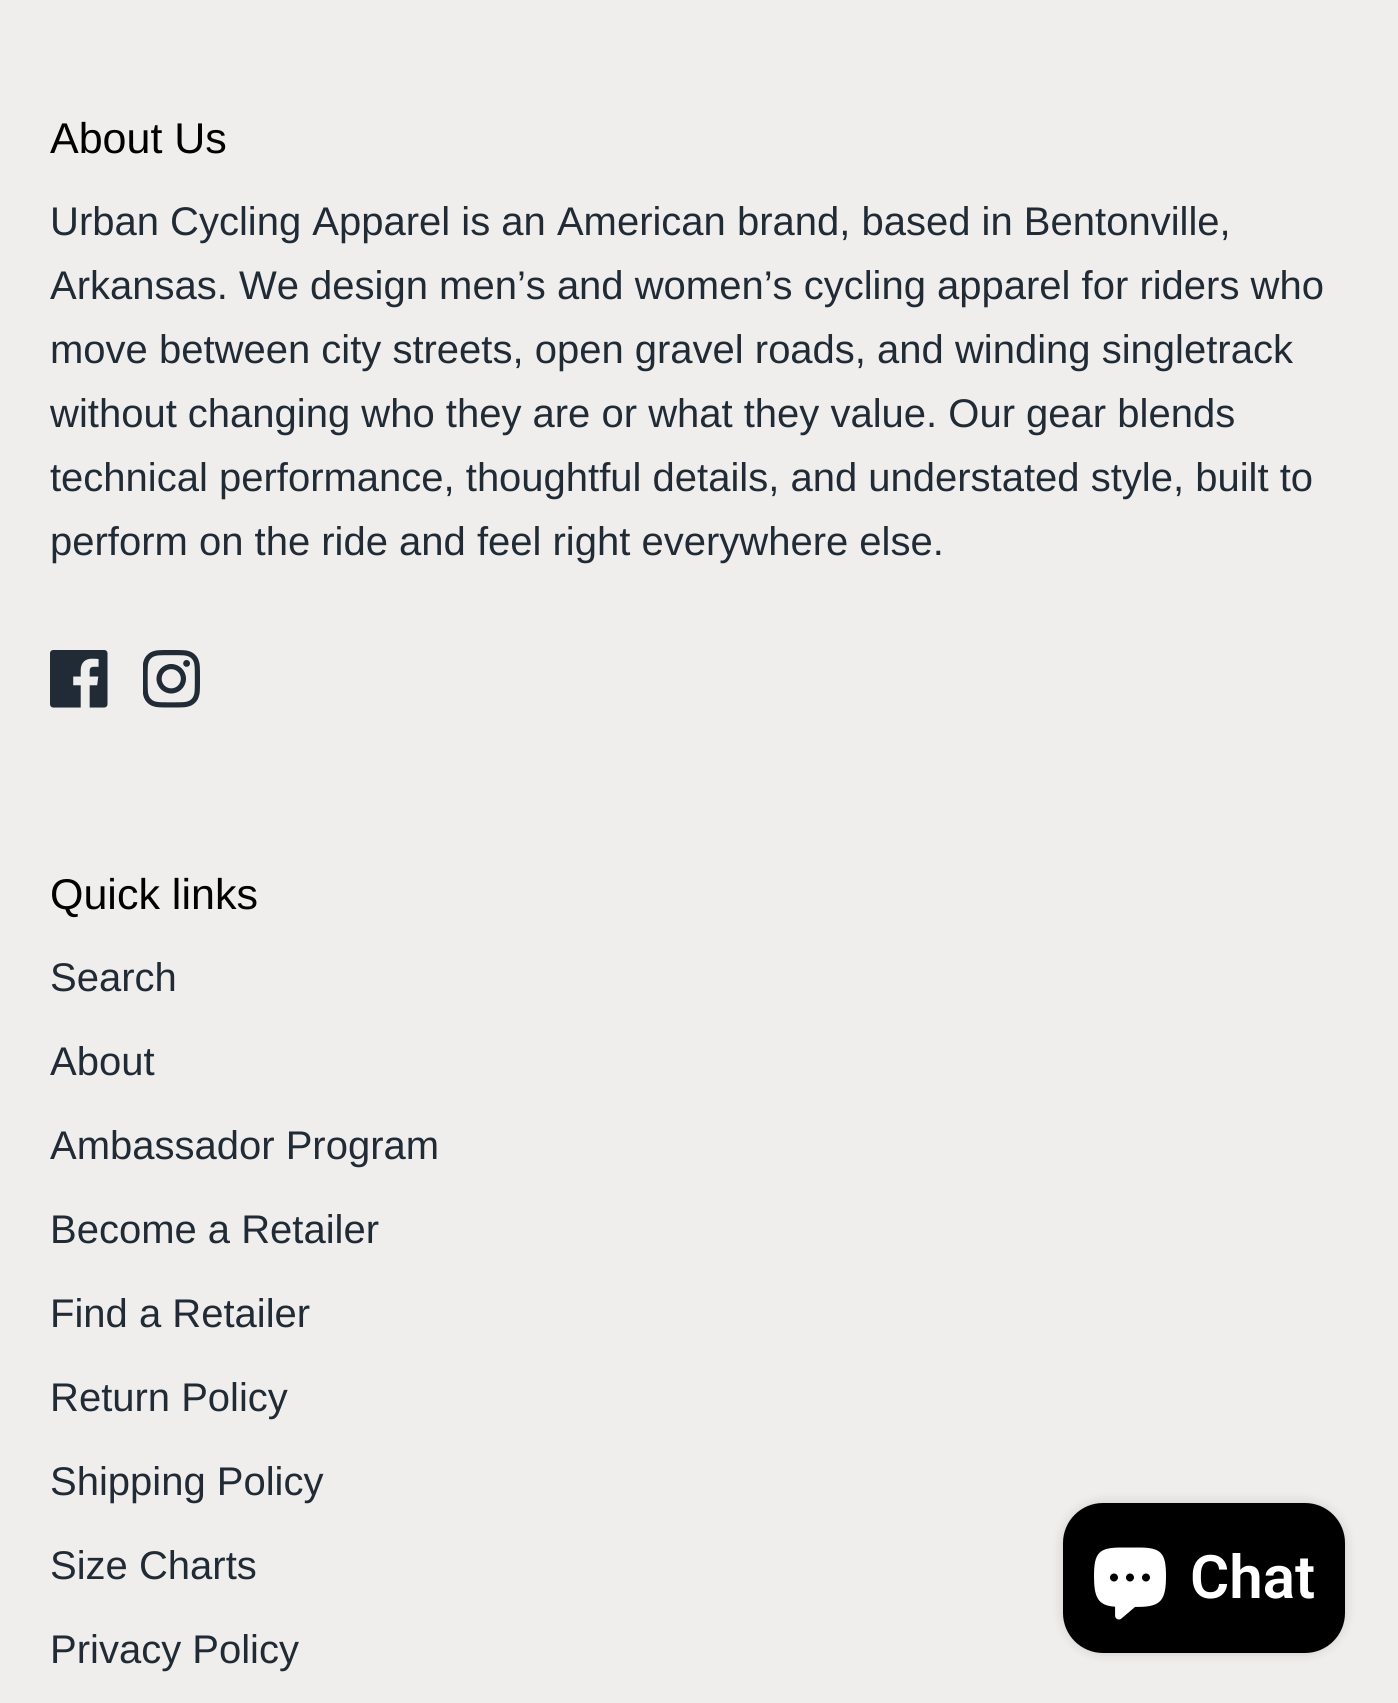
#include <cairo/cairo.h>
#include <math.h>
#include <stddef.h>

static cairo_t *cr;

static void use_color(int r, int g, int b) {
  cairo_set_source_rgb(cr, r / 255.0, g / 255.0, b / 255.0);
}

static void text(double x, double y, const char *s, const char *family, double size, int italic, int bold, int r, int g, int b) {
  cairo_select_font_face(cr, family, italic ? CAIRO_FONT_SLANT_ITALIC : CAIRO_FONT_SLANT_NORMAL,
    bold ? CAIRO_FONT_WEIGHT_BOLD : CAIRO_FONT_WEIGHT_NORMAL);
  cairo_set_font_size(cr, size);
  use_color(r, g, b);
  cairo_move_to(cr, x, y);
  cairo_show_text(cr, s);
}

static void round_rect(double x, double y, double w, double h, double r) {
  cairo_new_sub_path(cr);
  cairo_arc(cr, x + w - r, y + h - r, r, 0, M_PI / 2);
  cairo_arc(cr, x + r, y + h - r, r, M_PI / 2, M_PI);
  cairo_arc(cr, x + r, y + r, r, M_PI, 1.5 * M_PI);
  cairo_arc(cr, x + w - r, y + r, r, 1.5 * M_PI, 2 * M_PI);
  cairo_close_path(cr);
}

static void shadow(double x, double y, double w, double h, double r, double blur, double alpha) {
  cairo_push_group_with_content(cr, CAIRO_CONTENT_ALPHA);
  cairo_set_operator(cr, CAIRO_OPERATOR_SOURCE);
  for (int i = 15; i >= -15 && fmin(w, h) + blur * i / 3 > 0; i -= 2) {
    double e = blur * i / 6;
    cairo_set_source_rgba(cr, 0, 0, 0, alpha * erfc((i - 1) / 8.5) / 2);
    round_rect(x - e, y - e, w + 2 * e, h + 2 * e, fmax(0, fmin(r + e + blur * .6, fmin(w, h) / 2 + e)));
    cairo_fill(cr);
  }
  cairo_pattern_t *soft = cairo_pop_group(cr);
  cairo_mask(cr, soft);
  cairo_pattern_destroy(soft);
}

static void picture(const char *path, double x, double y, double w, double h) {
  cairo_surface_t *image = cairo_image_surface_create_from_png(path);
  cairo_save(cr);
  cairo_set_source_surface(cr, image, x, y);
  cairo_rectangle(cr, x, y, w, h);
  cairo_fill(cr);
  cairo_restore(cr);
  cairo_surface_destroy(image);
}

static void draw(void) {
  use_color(240, 238, 237);
  cairo_paint(cr);
  picture("img_01.png", 50, 650, 58, 58);
  picture("img_02.png", 143, 650, 57, 58);
  use_color(0, 0, 0);
  shadow(1063, 1503, 282, 150, 40, 6, 0.15);
  use_color(0, 0, 0);
  round_rect(1063, 1503, 282, 150, 40);
  cairo_fill(cr);
  picture("img_03.png", 1094, 1547, 72, 73);
  text(50, 153, "About Us", "Liberation Sans", 43, 0, 0, 0, 0, 0);
  text(50, 235, "Urban Cycling Apparel is an American brand, based in Bentonville,", "Liberation Sans", 40, 0, 0, 33, 43, 54);
  text(50, 299, "Arkansas. We design men’s and women’s cycling apparel for riders who", "Liberation Sans", 40, 0, 0, 33, 43, 54);
  text(50, 363, "move between city streets, open gravel roads, and winding singletrack", "Liberation Sans", 40, 0, 0, 33, 43, 54);
  text(50, 427, "without changing who they are or what they value. Our gear blends", "Liberation Sans", 40, 0, 0, 33, 43, 54);
  text(50, 491, "technical performance, thoughtful details, and understated style, built to", "Liberation Sans", 40, 0, 0, 33, 43, 54);
  text(50, 555, "perform on the ride and feel right everywhere else.", "Liberation Sans", 40, 0, 0, 33, 43, 54);
  text(50, 909, "Quick links", "Liberation Sans", 43, 0, 0, 0, 0, 0);
  text(50, 991, "Search", "Liberation Sans", 40, 0, 0, 33, 43, 54);
  text(50, 1075, "About", "Liberation Sans", 40, 0, 0, 33, 43, 54);
  text(50, 1159, "Ambassador Program", "Liberation Sans", 40, 0, 0, 33, 43, 54);
  text(50, 1243, "Become a Retailer", "Liberation Sans", 40, 0, 0, 33, 43, 54);
  text(50, 1327, "Find a Retailer", "Liberation Sans", 40, 0, 0, 33, 43, 54);
  text(50, 1411, "Return Policy", "Liberation Sans", 40, 0, 0, 33, 43, 54);
  text(50, 1495, "Shipping Policy", "Liberation Sans", 40, 0, 0, 33, 43, 54);
  text(50, 1579, "Size Charts", "Liberation Sans", 40, 0, 0, 33, 43, 54);
  text(50, 1663, "Privacy Policy", "Liberation Sans", 40, 0, 0, 33, 43, 54);
  text(1190, 1598, "Chat", "Roboto SemiBold", 60, 0, 0, 255, 255, 255);
}

int main(void) {
  cairo_surface_t *surface = cairo_image_surface_create(CAIRO_FORMAT_RGB24, 1398, 1703);
  cr = cairo_create(surface);
  cairo_font_options_t *options = cairo_font_options_create();
  cairo_font_options_set_hint_metrics(options, CAIRO_HINT_METRICS_OFF);
  cairo_font_options_set_hint_style(options, CAIRO_HINT_STYLE_NONE);
  cairo_set_font_options(cr, options);
  cairo_set_miter_limit(cr, 4);
  draw();
  cairo_surface_write_to_png(surface, "out.png");
  cairo_font_options_destroy(options);
  cairo_destroy(cr);
  cairo_surface_destroy(surface);
  return 0;
}
